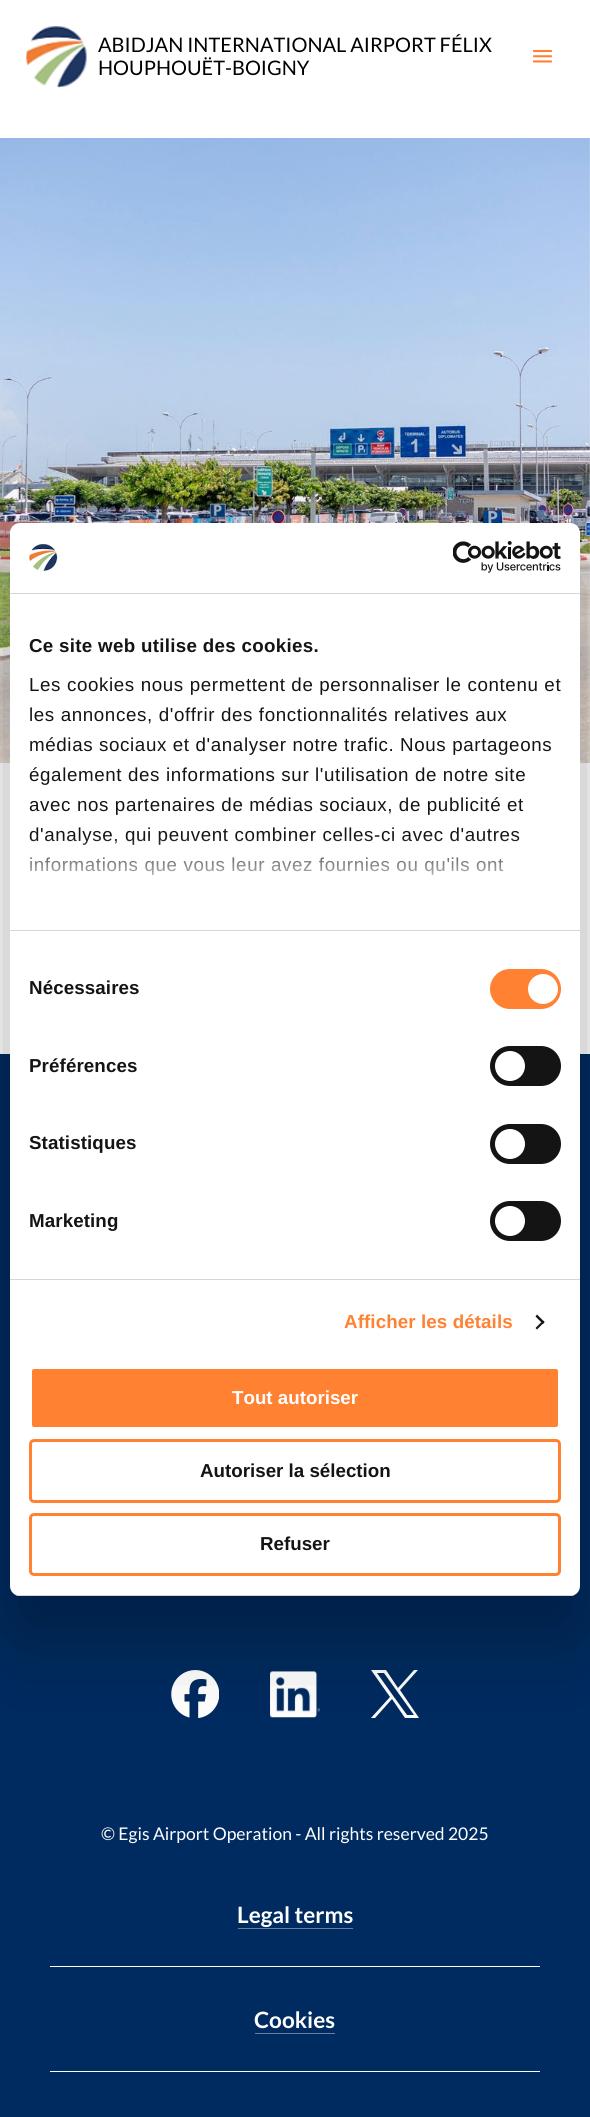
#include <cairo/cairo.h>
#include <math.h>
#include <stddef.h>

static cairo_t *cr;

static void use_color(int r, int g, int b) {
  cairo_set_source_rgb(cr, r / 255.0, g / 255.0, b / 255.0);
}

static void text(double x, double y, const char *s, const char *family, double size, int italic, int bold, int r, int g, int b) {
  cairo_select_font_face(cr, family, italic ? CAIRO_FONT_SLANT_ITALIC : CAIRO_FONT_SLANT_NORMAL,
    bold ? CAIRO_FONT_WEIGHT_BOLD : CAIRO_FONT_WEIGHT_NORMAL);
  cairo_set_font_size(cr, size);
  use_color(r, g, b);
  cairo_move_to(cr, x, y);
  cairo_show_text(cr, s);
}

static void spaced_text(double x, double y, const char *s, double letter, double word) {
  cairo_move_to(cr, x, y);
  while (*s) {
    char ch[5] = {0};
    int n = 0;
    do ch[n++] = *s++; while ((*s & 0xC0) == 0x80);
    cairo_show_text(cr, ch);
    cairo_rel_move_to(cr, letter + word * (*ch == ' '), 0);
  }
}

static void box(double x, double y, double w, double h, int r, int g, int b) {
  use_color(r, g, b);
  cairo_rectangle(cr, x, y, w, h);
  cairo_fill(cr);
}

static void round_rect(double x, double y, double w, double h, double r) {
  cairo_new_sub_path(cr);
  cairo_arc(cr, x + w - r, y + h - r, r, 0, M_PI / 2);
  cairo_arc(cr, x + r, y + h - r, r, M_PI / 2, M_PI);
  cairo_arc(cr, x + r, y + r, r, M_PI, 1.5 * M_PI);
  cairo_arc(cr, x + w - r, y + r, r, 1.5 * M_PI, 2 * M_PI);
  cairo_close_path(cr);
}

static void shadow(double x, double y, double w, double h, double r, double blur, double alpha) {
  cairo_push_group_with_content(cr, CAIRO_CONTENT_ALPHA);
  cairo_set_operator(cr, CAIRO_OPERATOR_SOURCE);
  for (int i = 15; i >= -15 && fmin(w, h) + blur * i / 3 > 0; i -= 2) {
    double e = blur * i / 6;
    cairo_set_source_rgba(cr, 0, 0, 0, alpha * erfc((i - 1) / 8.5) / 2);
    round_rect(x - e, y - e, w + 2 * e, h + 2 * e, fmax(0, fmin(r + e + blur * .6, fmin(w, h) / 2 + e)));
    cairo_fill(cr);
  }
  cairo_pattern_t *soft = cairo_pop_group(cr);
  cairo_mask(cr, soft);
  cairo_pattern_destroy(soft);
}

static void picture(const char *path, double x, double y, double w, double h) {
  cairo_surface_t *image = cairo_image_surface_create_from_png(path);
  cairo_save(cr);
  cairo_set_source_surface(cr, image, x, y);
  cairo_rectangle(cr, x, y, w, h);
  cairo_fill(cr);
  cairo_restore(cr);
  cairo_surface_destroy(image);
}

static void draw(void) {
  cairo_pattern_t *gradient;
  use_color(255, 255, 255);
  cairo_paint(cr);
  picture("img_01.png", 26, 25, 61, 63);
  picture("img_02.png", 533, 50, 19, 13);
  picture("img_03.png", 0, 138, 590, 625);
  box(0, 1054, 590, 1063, 0, 43, 96);
  picture("img_04.png", 171, 1670, 48, 49);
  picture("img_05.png", 270, 1671, 50, 47);
  use_color(255, 255, 255);
  cairo_new_path(cr);
  cairo_move_to(cr, 400, 1690);
  cairo_line_to(cr, 418, 1670);
  cairo_line_to(cr, 414, 1670);
  cairo_line_to(cr, 398, 1688);
  cairo_line_to(cr, 386, 1670);
  cairo_line_to(cr, 371, 1670);
  cairo_line_to(cr, 390, 1697);
  cairo_line_to(cr, 371, 1718);
  cairo_line_to(cr, 375, 1718);
  cairo_line_to(cr, 392, 1699);
  cairo_line_to(cr, 405, 1718);
  cairo_line_to(cr, 419, 1718);
  cairo_close_path(cr);
  cairo_move_to(cr, 394, 1697);
  cairo_line_to(cr, 377, 1673);
  cairo_line_to(cr, 384, 1673);
  cairo_line_to(cr, 414, 1715);
  cairo_line_to(cr, 407, 1715);
  cairo_close_path(cr);
  cairo_fill(cr);
  box(238, 1928, 115, 1, 102, 128, 160);
  box(50, 1966, 490, 1, 255, 255, 255);
  box(255, 2033, 80, 1, 102, 128, 160);
  box(50, 2071, 490, 1, 255, 255, 255);
  use_color(0, 0, 0);
  shadow(10, 563, 570, 1073, 10, 42.5, 0.3);
  use_color(255, 255, 255);
  round_rect(10, 523, 570, 1073, 10);
  cairo_fill(cr);
  box(10, 593, 570, 1, 214, 214, 214);
  picture("img_06.png", 29, 544, 29, 27);
  picture("img_07.png", 453, 541, 108, 32);
  box(10, 930, 570, 1, 214, 214, 214);
  box(10, 1279, 570, 1, 214, 214, 214);
  use_color(255, 129, 49);
  round_rect(490, 969, 71, 40, 20);
  cairo_fill(cr);
  use_color(255, 255, 255);
  cairo_arc(cr, 543, 989, 15, 0, 2 * M_PI);
  cairo_fill(cr);
  use_color(20, 20, 20);
  round_rect(490, 1046, 71, 40, 20);
  cairo_fill(cr);
  use_color(255, 255, 255);
  cairo_arc(cr, 510, 1066, 15, 0, 2 * M_PI);
  cairo_fill(cr);
  use_color(20, 20, 20);
  round_rect(490, 1124, 71, 40, 20);
  cairo_fill(cr);
  use_color(255, 255, 255);
  cairo_arc(cr, 510, 1144, 15, 0, 2 * M_PI);
  cairo_fill(cr);
  use_color(20, 20, 20);
  round_rect(490, 1201, 71, 40, 20);
  cairo_fill(cr);
  use_color(255, 255, 255);
  cairo_arc(cr, 510, 1221, 15, 0, 2 * M_PI);
  cairo_fill(cr);
  use_color(20, 20, 20);
  cairo_new_path(cr);
  cairo_move_to(cr, 537, 1314.5);
  cairo_line_to(cr, 544.5, 1322);
  cairo_line_to(cr, 543, 1324);
  cairo_line_to(cr, 535.5, 1316.5);
  cairo_close_path(cr);
  cairo_fill(cr);
  cairo_new_path(cr);
  cairo_move_to(cr, 543, 1320.5);
  cairo_line_to(cr, 544.5, 1322);
  cairo_line_to(cr, 537, 1329.5);
  cairo_line_to(cr, 535.5, 1328);
  cairo_close_path(cr);
  cairo_fill(cr);
  cairo_save(cr);
  round_rect(10, 523, 570, 1073, 10);
  cairo_clip(cr);
  box(10, 1595, 570, 1, 214, 214, 214);
  cairo_restore(cr);
  use_color(255, 129, 49);
  round_rect(30.5, 1367.5, 529, 61, 3.5);
  cairo_fill_preserve(cr);
  use_color(255, 255, 255);
  cairo_set_line_width(cr, 3);
  cairo_stroke(cr);
  round_rect(30.5, 1440.5, 529, 61, 3.5);
  use_color(255, 129, 49);
  cairo_stroke(cr);
  round_rect(30.5, 1514.5, 529, 60, 3.5);
  cairo_stroke(cr);
  text(98, 52, "ABIDJAN INTERNATIONAL AIRPORT FÉLIX", "Lato", 20, 0, 0, 0, 0, 0);
  text(98, 75, "HOUPHOUËT-BOIGNY", "Lato", 20, 0, 0, 0, 0, 0);
  text(101, 1840, "© Egis Airport Operation - All rights reserved 2025", "Lato", 17.5, 0, 0, 255, 255, 255);
  text(237, 1923, "Legal terms", "Lato", 22.5, 0, 1, 255, 255, 255);
  text(254, 2028, "Cookies", "Lato", 22.5, 0, 1, 255, 255, 255);
  cairo_select_font_face(cr, "Liberation Sans", CAIRO_FONT_SLANT_NORMAL, CAIRO_FONT_WEIGHT_BOLD);
  cairo_set_font_size(cr, 18.75);
  use_color(20, 20, 20);
  spaced_text(29, 652, "Ce site web utilise des cookies.", 0.3, 0);
  cairo_select_font_face(cr, "Liberation Sans", CAIRO_FONT_SLANT_NORMAL, CAIRO_FONT_WEIGHT_NORMAL);
  spaced_text(29, 691, "Les cookies nous permettent de personnaliser le contenu et", 0.62, 0);
  spaced_text(29, 721, "les annonces, d'offrir des fonctionnalités relatives aux", 0.62, 0);
  spaced_text(29, 751, "médias sociaux et d'analyser notre trafic. Nous partageons", 0.62, 0);
  spaced_text(29, 781, "également des informations sur l'utilisation de notre site", 0.62, 0);
  spaced_text(29, 811, "avec nos partenaires de médias sociaux, de publicité et", 0.62, 0);
  spaced_text(29, 841, "d'analyse, qui peuvent combiner celles-ci avec d'autres", 0.62, 0);
  spaced_text(29, 871, "informations que vous leur avez fournies ou qu'ils ont", 0.62, 0);
  gradient = cairo_pattern_create_linear(287, 930, 287, 836);
  cairo_pattern_add_color_stop_rgba(gradient, 0, 1, 1, 1, 1);
  cairo_pattern_add_color_stop_rgba(gradient, 0.5, 1, 1, 1, 0.8);
  cairo_pattern_add_color_stop_rgba(gradient, 1, 1, 1, 1, 0);
  cairo_set_source(cr, gradient);
  cairo_pattern_destroy(gradient);
  cairo_rectangle(cr, 30, 837, 489, 38);
  cairo_fill(cr);
  cairo_select_font_face(cr, "Liberation Sans", CAIRO_FONT_SLANT_NORMAL, CAIRO_FONT_WEIGHT_BOLD);
  use_color(20, 20, 20);
  spaced_text(29, 994, "Nécessaires", 0.1, 0);
  spaced_text(29, 1072, "Préférences", 0.1, 0);
  spaced_text(29, 1149, "Statistiques", 0.1, 0);
  spaced_text(29, 1227, "Marketing", 0.1, 0);
  use_color(255, 129, 49);
  spaced_text(344, 1328, "Afficher les détails", 0.1, 0);
  text(232, 1404, "Tout autoriser", "Liberation Sans", 18.75, 0, 1, 255, 255, 255);
  text(200, 1477, "Autoriser la sélection", "Liberation Sans", 18.75, 0, 1, 20, 20, 20);
  text(260, 1550, "Refuser", "Liberation Sans", 18.75, 0, 1, 20, 20, 20);
}

int main(void) {
  cairo_surface_t *surface = cairo_image_surface_create(CAIRO_FORMAT_RGB24, 590, 2117);
  cr = cairo_create(surface);
  cairo_font_options_t *options = cairo_font_options_create();
  cairo_font_options_set_hint_metrics(options, CAIRO_HINT_METRICS_OFF);
  cairo_font_options_set_hint_style(options, CAIRO_HINT_STYLE_NONE);
  cairo_set_font_options(cr, options);
  cairo_set_miter_limit(cr, 4);
  draw();
  cairo_surface_write_to_png(surface, "out.png");
  cairo_font_options_destroy(options);
  cairo_destroy(cr);
  cairo_surface_destroy(surface);
  return 0;
}
